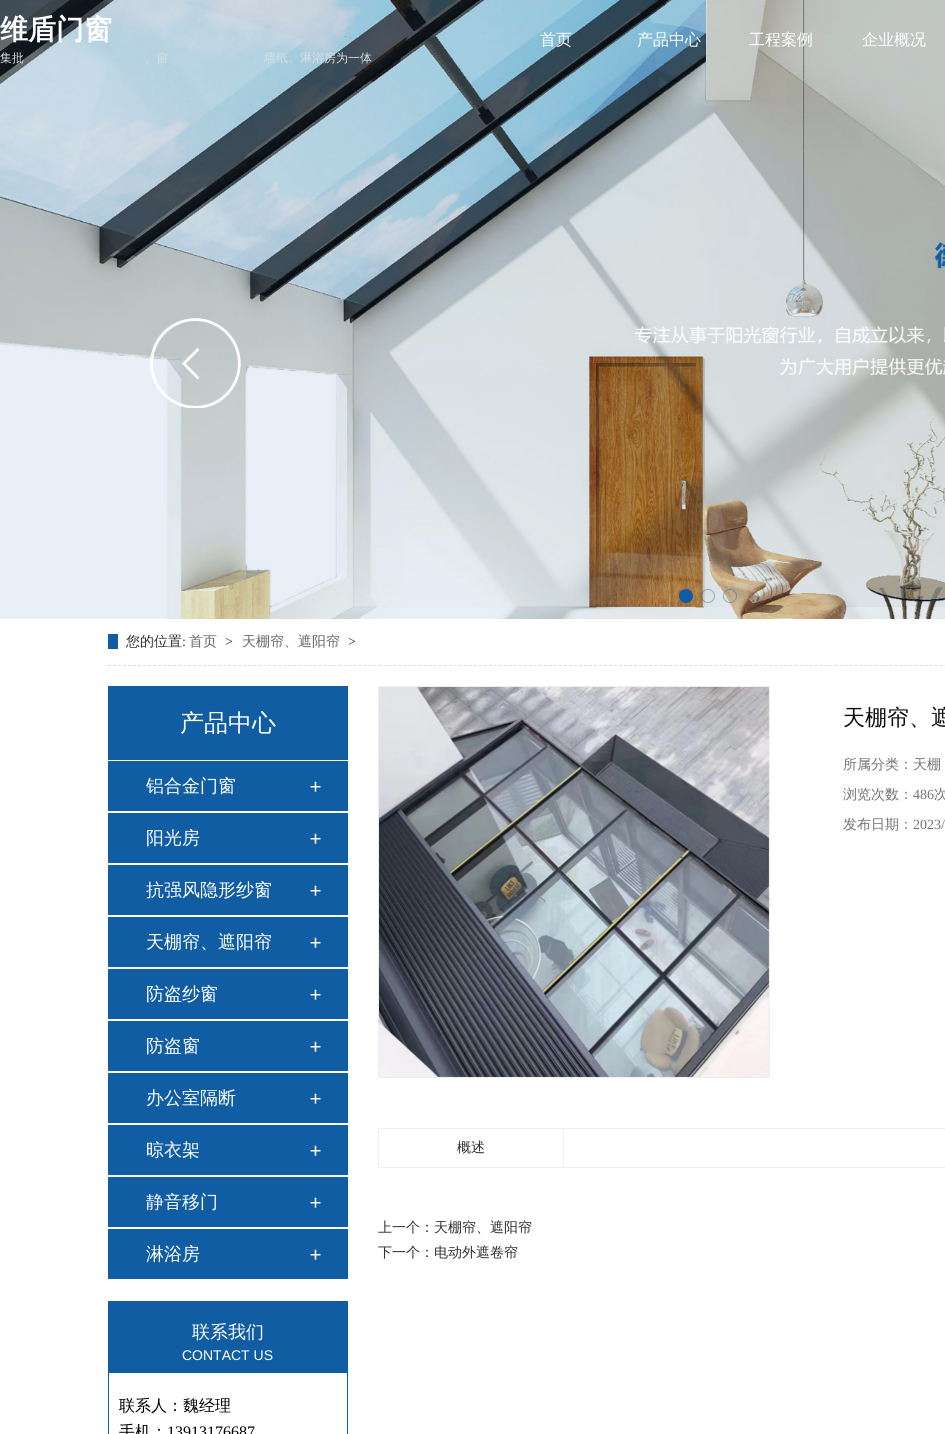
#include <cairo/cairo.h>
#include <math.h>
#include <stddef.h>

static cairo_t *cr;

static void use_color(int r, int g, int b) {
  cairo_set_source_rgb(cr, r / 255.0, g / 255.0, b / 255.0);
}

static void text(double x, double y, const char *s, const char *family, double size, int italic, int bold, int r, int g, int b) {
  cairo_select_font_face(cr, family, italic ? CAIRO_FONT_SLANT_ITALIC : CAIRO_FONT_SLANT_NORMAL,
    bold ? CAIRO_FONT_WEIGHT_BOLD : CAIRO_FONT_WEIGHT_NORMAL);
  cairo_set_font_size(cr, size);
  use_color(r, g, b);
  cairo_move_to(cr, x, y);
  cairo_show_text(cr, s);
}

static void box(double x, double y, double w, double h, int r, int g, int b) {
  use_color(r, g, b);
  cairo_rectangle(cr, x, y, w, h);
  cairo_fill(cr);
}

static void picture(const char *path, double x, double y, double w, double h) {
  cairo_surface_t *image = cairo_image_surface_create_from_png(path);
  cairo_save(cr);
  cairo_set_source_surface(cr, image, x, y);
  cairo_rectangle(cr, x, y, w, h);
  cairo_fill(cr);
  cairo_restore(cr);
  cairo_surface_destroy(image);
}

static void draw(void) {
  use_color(255, 255, 255);
  cairo_paint(cr);
  picture("img_01.png", 0, 0, 945, 619);
  picture("img_02.png", 150, 318, 91, 90);
  use_color(16, 93, 163);
  cairo_arc(cr, 686, 596, 6.5, 0, 2 * M_PI);
  cairo_fill_preserve(cr);
  cairo_set_line_width(cr, 1);
  cairo_stroke(cr);
  cairo_arc(cr, 708, 596, 6.5, 0, 2 * M_PI);
  cairo_set_source_rgba(cr, 0.063, 0.365, 0.639, 0.4);
  cairo_stroke(cr);
  cairo_arc(cr, 730, 596, 6.5, 0, 2 * M_PI);
  cairo_stroke(cr);
  cairo_new_path(cr);
  cairo_move_to(cr, 108, 665.5);
  cairo_line_to(cr, 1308, 665.5);
  use_color(220, 220, 220);
  cairo_set_dash(cr, (double[]){3, 2.01}, 2, 0);
  cairo_stroke(cr);
  box(108, 634, 10, 15, 16, 93, 163);
  box(108, 686, 240, 74, 16, 93, 163);
  box(108, 761, 240, 50, 16, 93, 163);
  picture("img_03.png", 310, 781, 11, 11);
  box(108, 813, 240, 50, 16, 93, 163);
  picture("img_03.png", 310, 833, 11, 11);
  box(108, 865, 240, 50, 16, 93, 163);
  picture("img_03.png", 310, 885, 11, 11);
  box(108, 917, 240, 50, 16, 93, 163);
  picture("img_03.png", 310, 937, 11, 11);
  box(108, 969, 240, 50, 16, 93, 163);
  picture("img_03.png", 310, 989, 11, 11);
  box(108, 1021, 240, 50, 16, 93, 163);
  picture("img_03.png", 310, 1041, 11, 11);
  box(108, 1073, 240, 50, 16, 93, 163);
  picture("img_03.png", 310, 1093, 11, 11);
  box(108, 1125, 240, 50, 16, 93, 163);
  picture("img_03.png", 310, 1145, 11, 11);
  box(108, 1177, 240, 50, 16, 93, 163);
  picture("img_03.png", 310, 1197, 11, 11);
  box(108, 1229, 240, 50, 16, 93, 163);
  picture("img_03.png", 310, 1249, 11, 11);
  cairo_rectangle(cr, 108.5, 1301.5, 239, 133);
  cairo_set_dash(cr, NULL, 0, 0);
  cairo_stroke(cr);
  box(109, 1302, 238, 71, 16, 93, 163);
  cairo_rectangle(cr, 378.5, 686.5, 391, 391);
  use_color(238, 238, 238);
  cairo_stroke(cr);
  picture("img_04.png", 379, 687, 390, 390);
  cairo_rectangle(cr, 378.5, 1128.5, 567, 39);
  cairo_stroke(cr);
  box(563, 1129, 1, 38, 238, 238, 238);
  text(0, 39, "维盾门窗", "WenQuanYi Zen Hei", 28, 0, 1, 255, 255, 255);
  text(0, 62, "集批", "WenQuanYi Zen Hei Medium", 12, 0, 0, 213, 223, 228);
  text(144, 62, "、窗", "WenQuanYi Zen Hei Medium", 12, 0, 0, 213, 223, 228);
  text(252, 62, "、墙纸、淋浴房为一体", "WenQuanYi Zen Hei Medium", 12, 0, 0, 213, 223, 228);
  text(540, 45, "首页", "WenQuanYi Zen Hei Medium", 16, 0, 0, 255, 255, 255);
  text(637, 45, "产品中心", "WenQuanYi Zen Hei Medium", 16, 0, 0, 255, 255, 255);
  text(749, 45, "工程案例", "WenQuanYi Zen Hei Medium", 16, 0, 0, 255, 255, 255);
  text(862, 45, "企业概况", "WenQuanYi Zen Hei Medium", 16, 0, 0, 255, 255, 255);
  text(126, 646, "您的位置", "WenQuanYi Zen Hei Medium", 14, 0, 0, 47, 47, 47);
  text(182, 646, ":", "Liberation Serif", 14, 0, 0, 47, 47, 47);
  text(189, 646, "首页", "WenQuanYi Zen Hei Medium", 14, 0, 0, 102, 102, 102);
  text(225, 646, ">", "Liberation Serif", 14, 0, 0, 47, 47, 47);
  text(242, 646, "天棚帘、遮阳帘", "WenQuanYi Zen Hei Medium", 14, 0, 0, 102, 102, 102);
  text(348, 646, ">", "Liberation Serif", 14, 0, 0, 47, 47, 47);
  text(180, 731, "产品中心", "WenQuanYi Zen Hei Medium", 24, 0, 0, 255, 255, 255);
  text(146, 792, "铝合金门窗", "WenQuanYi Zen Hei Medium", 18, 0, 0, 255, 255, 255);
  text(146, 844, "阳光房", "WenQuanYi Zen Hei Medium", 18, 0, 0, 255, 255, 255);
  text(146, 896, "抗强风隐形纱窗", "WenQuanYi Zen Hei Medium", 18, 0, 0, 255, 255, 255);
  text(146, 948, "天棚帘、遮阳帘", "WenQuanYi Zen Hei Medium", 18, 0, 0, 255, 255, 255);
  text(146, 1000, "防盗纱窗", "WenQuanYi Zen Hei Medium", 18, 0, 0, 255, 255, 255);
  text(146, 1052, "防盗窗", "WenQuanYi Zen Hei Medium", 18, 0, 0, 255, 255, 255);
  text(146, 1104, "办公室隔断", "WenQuanYi Zen Hei Medium", 18, 0, 0, 255, 255, 255);
  text(146, 1156, "晾衣架", "WenQuanYi Zen Hei Medium", 18, 0, 0, 255, 255, 255);
  text(146, 1208, "静音移门", "WenQuanYi Zen Hei Medium", 18, 0, 0, 255, 255, 255);
  text(146, 1260, "淋浴房", "WenQuanYi Zen Hei Medium", 18, 0, 0, 255, 255, 255);
  text(192, 1338, "联系我们", "WenQuanYi Zen Hei Medium", 18, 0, 0, 255, 255, 255);
  text(182, 1360, "CONTACT US", "Liberation Sans", 14, 0, 0, 255, 255, 255);
  text(119, 1411, "联系人：魏经理", "WenQuanYi Zen Hei Medium", 16, 0, 0, 0, 0, 0);
  text(119, 1437, "手机：", "WenQuanYi Zen Hei Medium", 16, 0, 0, 0, 0, 0);
  text(167, 1437, "13913176687", "Liberation Serif", 16, 0, 0, 0, 0, 0);
  text(843, 725, "天棚帘、遮", "WenQuanYi Zen Hei Medium", 22, 0, 0, 13, 13, 13);
  text(843, 769, "所属分类：天棚", "WenQuanYi Zen Hei Medium", 14, 0, 0, 119, 114, 114);
  text(843, 799, "浏览次数：", "WenQuanYi Zen Hei Medium", 14, 0, 0, 119, 114, 114);
  text(913, 799, "486", "Liberation Serif", 14, 0, 0, 119, 114, 114);
  text(934, 799, "次", "WenQuanYi Zen Hei Medium", 14, 0, 0, 119, 114, 114);
  text(843, 829, "发布日期：", "WenQuanYi Zen Hei Medium", 14, 0, 0, 119, 114, 114);
  text(913, 829, "2023/", "Liberation Serif", 14, 0, 0, 119, 114, 114);
  text(457, 1152, "概述", "WenQuanYi Zen Hei Medium", 14, 0, 0, 47, 47, 47);
  text(378, 1232, "上一个：天棚帘、遮阳帘", "WenQuanYi Zen Hei Medium", 14, 0, 0, 47, 47, 47);
  text(378, 1257, "下一个：电动外遮卷帘", "WenQuanYi Zen Hei Medium", 14, 0, 0, 47, 47, 47);
}

int main(void) {
  cairo_surface_t *surface = cairo_image_surface_create(CAIRO_FORMAT_RGB24, 945, 1434);
  cr = cairo_create(surface);
  cairo_font_options_t *options = cairo_font_options_create();
  cairo_font_options_set_hint_metrics(options, CAIRO_HINT_METRICS_OFF);
  cairo_font_options_set_hint_style(options, CAIRO_HINT_STYLE_NONE);
  cairo_set_font_options(cr, options);
  cairo_set_miter_limit(cr, 4);
  draw();
  cairo_surface_write_to_png(surface, "out.png");
  cairo_font_options_destroy(options);
  cairo_destroy(cr);
  cairo_surface_destroy(surface);
  return 0;
}
